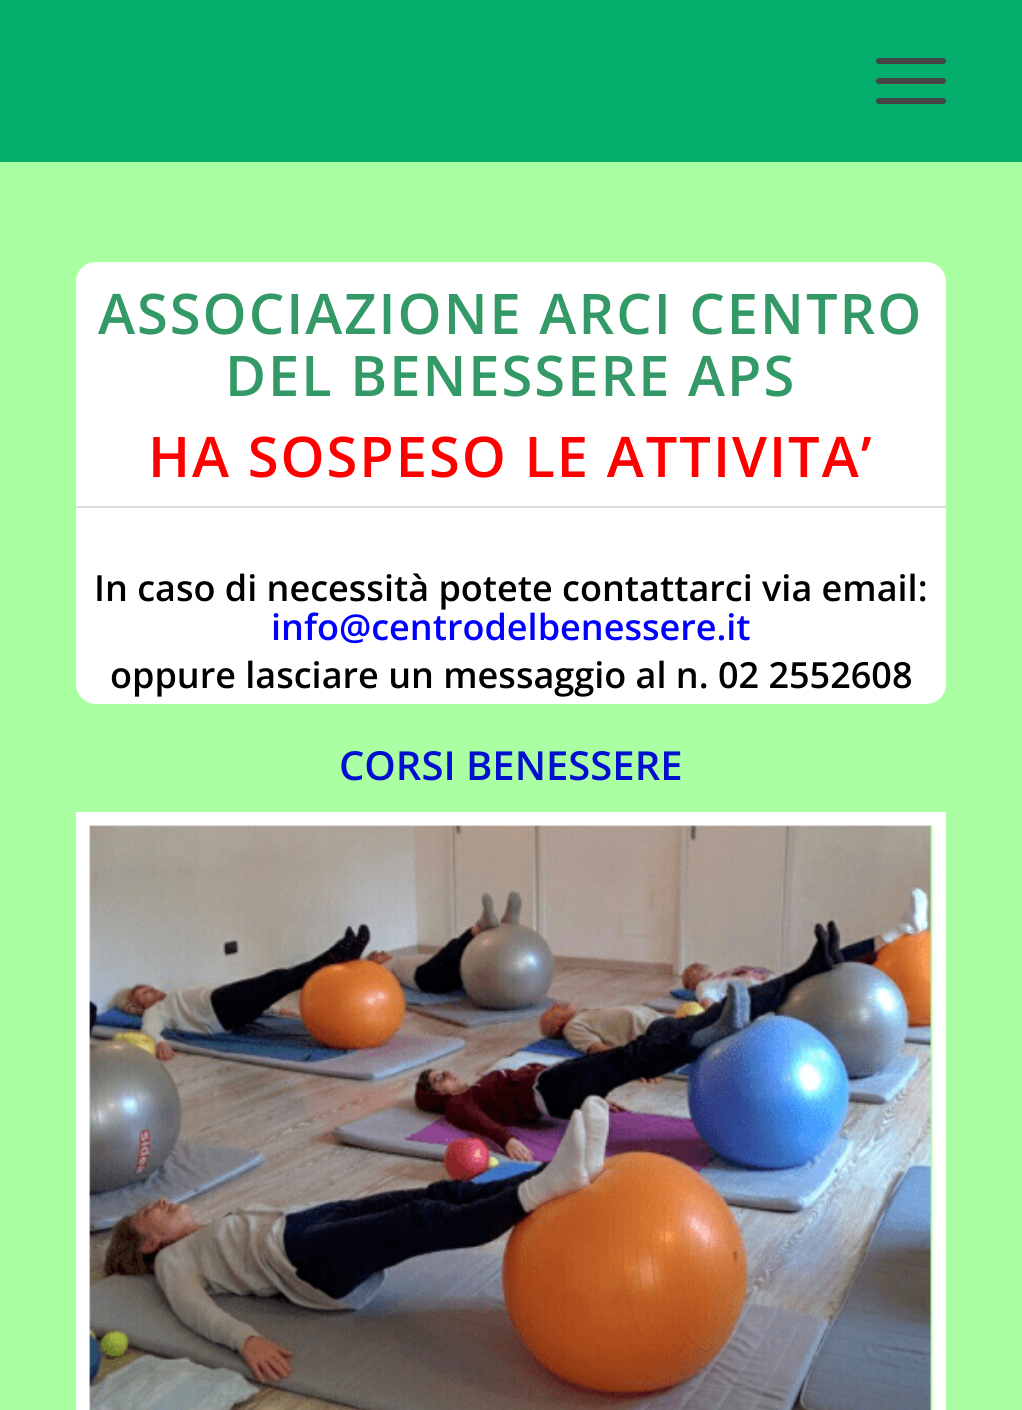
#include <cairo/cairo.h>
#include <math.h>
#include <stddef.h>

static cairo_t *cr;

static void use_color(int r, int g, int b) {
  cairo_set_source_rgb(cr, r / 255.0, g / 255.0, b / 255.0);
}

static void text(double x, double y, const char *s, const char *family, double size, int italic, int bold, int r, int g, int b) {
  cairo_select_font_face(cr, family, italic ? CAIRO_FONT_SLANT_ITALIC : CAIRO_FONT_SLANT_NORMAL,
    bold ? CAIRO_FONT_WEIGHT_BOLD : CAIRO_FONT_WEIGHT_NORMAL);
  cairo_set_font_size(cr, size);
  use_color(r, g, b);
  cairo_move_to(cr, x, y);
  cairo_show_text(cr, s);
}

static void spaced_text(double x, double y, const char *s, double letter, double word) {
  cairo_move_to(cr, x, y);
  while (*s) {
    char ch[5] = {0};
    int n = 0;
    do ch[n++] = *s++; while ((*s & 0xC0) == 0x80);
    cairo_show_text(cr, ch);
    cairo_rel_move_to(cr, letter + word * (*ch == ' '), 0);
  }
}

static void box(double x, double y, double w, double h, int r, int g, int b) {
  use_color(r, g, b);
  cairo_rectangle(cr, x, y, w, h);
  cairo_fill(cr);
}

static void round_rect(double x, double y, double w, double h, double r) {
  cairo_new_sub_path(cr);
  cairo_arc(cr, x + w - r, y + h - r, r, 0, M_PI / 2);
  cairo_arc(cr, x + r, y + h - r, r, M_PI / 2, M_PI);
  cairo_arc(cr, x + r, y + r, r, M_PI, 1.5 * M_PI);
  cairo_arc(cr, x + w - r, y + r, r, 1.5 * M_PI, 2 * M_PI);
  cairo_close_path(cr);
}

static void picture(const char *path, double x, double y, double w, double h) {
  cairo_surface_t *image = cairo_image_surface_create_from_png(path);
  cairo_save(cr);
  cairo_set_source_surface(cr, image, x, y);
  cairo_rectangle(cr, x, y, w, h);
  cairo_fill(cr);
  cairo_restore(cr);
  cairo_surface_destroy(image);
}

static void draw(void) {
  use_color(169, 255, 161);
  cairo_paint(cr);
  box(0, 0, 1022, 162, 3, 173, 108);
  use_color(68, 68, 68);
  round_rect(876, 78, 70, 6, 3);
  cairo_fill(cr);
  round_rect(876, 58, 70, 6, 3);
  cairo_fill(cr);
  round_rect(876, 98, 70, 6, 3);
  cairo_fill(cr);
  use_color(255, 255, 255);
  round_rect(76, 262, 870, 442, 20);
  cairo_fill(cr);
  box(76, 506, 870, 2, 221, 221, 221);
  picture("img_01.png", 76, 812, 870, 598);
  cairo_select_font_face(cr, "Open Sans SemiBold", CAIRO_FONT_SLANT_NORMAL, CAIRO_FONT_WEIGHT_NORMAL);
  cairo_set_font_size(cr, 56);
  use_color(51, 153, 102);
  spaced_text(98, 334, "ASSOCIAZIONE ARCI CENTRO", 2, 0);
  spaced_text(225, 396, "DEL BENESSERE APS", 2, 0);
  use_color(255, 0, 0);
  spaced_text(148, 477, "HA SOSPESO LE ATTIVITA’", 2, 0);
  text(94, 601, "In caso di necessità potete contattarci via email:", "Open Sans SemiBold", 36, 0, 0, 0, 0, 0);
  text(271, 640, "info@centrodelbenessere.it", "Open Sans SemiBold", 36, 0, 0, 0, 0, 255);
  text(110, 688, "oppure lasciare un messaggio al n. 02 2552608", "Open Sans SemiBold", 36, 0, 0, 0, 0, 0);
  text(339, 780, "CORSI BENESSERE", "Open Sans SemiBold", 40, 0, 0, 0, 14, 207);
}

int main(void) {
  cairo_surface_t *surface = cairo_image_surface_create(CAIRO_FORMAT_RGB24, 1022, 1410);
  cr = cairo_create(surface);
  cairo_font_options_t *options = cairo_font_options_create();
  cairo_font_options_set_hint_metrics(options, CAIRO_HINT_METRICS_OFF);
  cairo_font_options_set_hint_style(options, CAIRO_HINT_STYLE_NONE);
  cairo_set_font_options(cr, options);
  cairo_set_miter_limit(cr, 4);
  draw();
  cairo_surface_write_to_png(surface, "out.png");
  cairo_font_options_destroy(options);
  cairo_destroy(cr);
  cairo_surface_destroy(surface);
  return 0;
}
